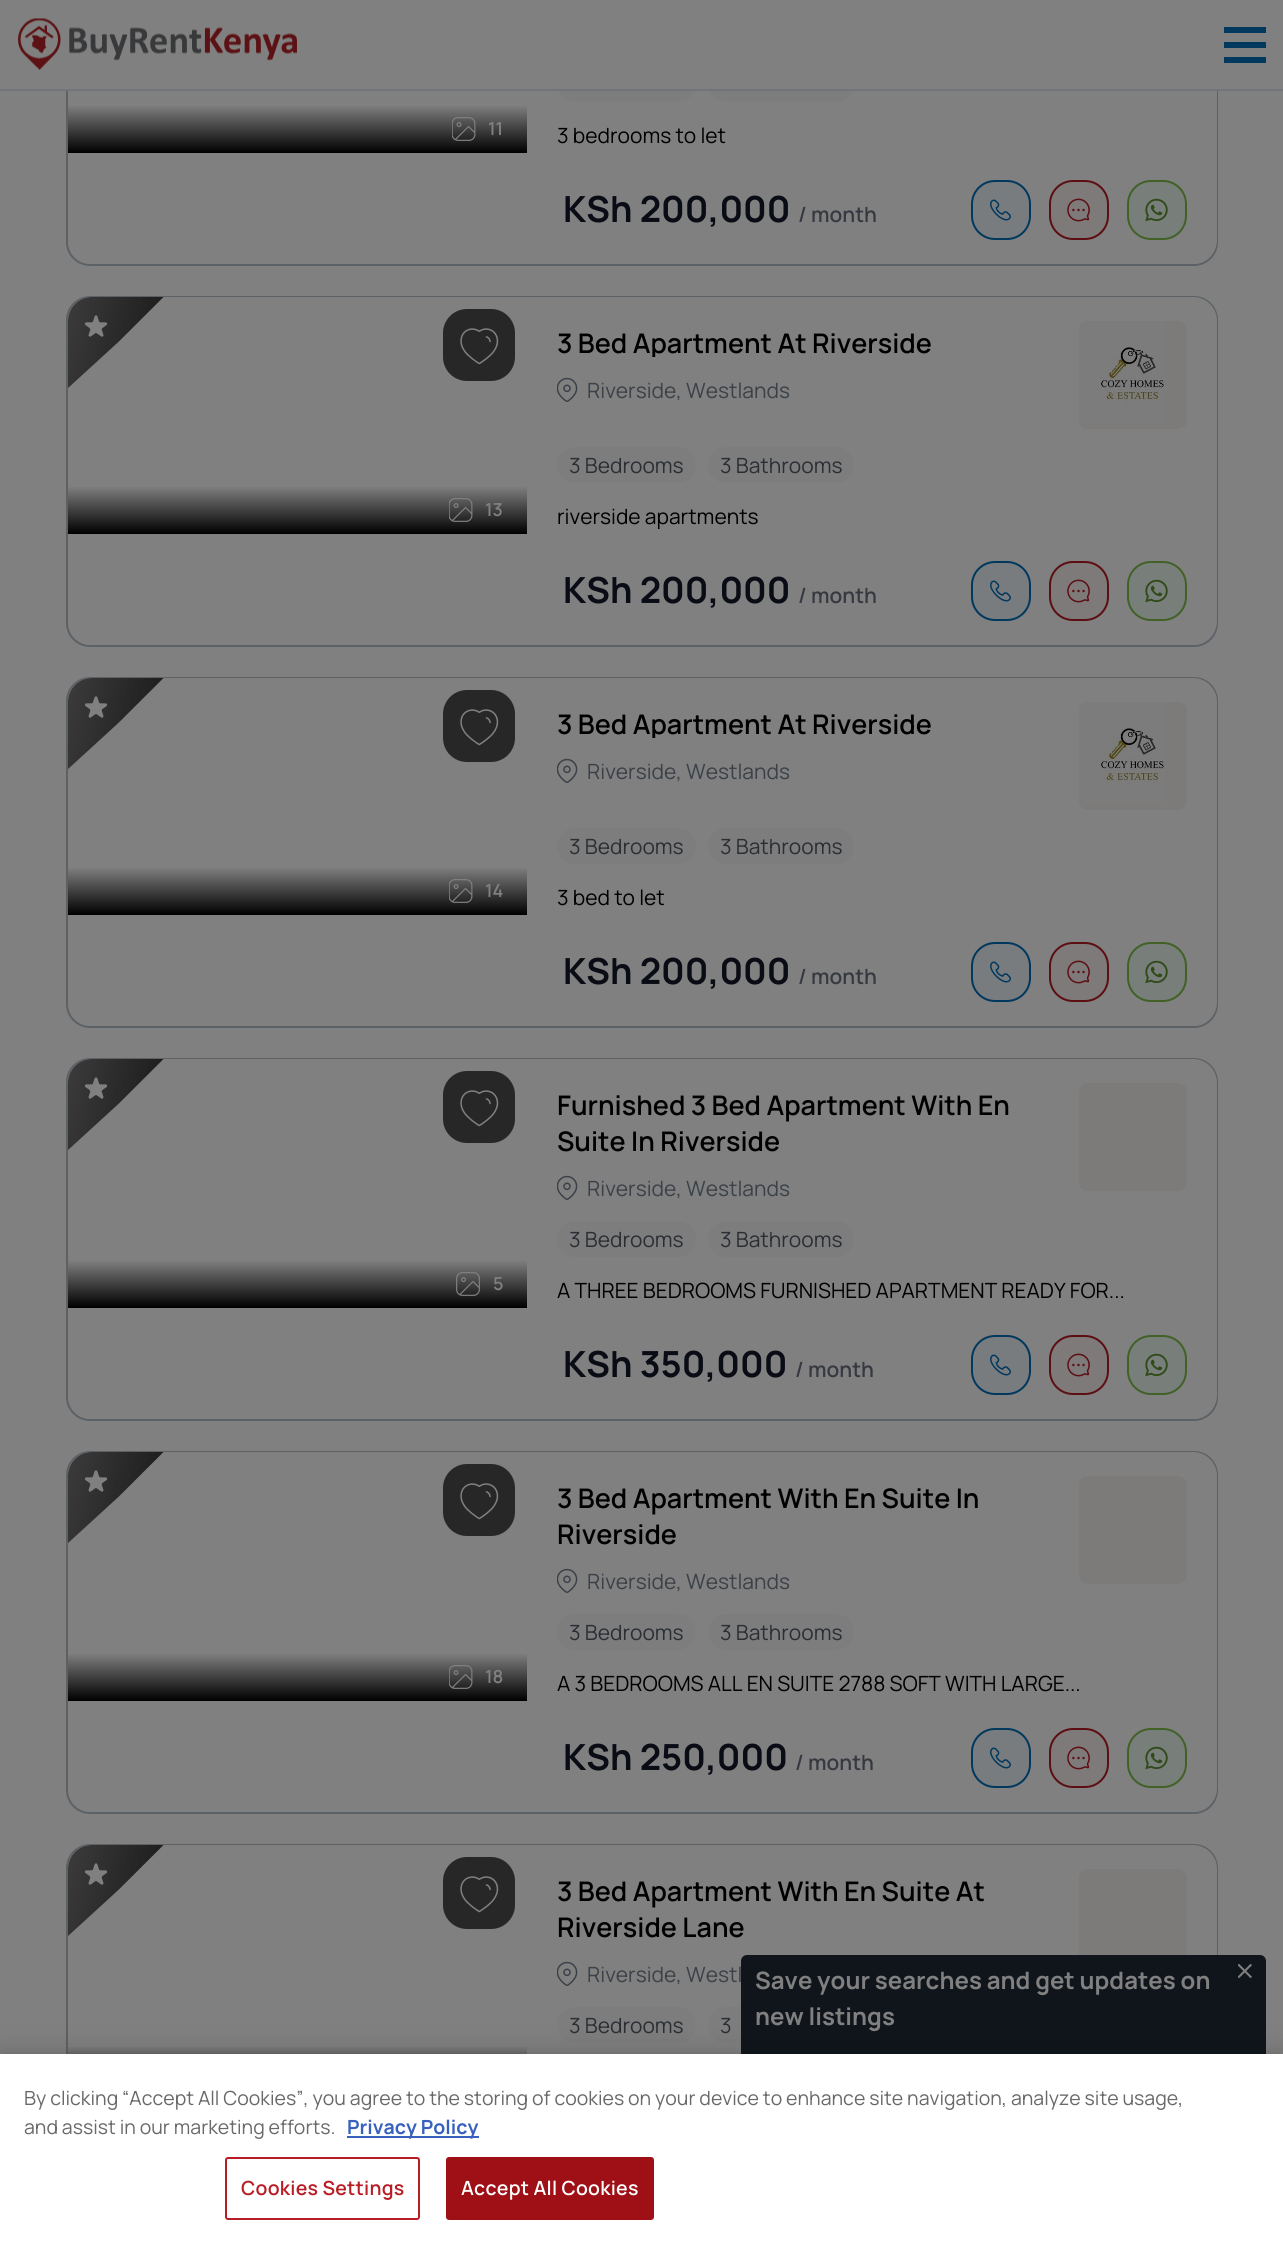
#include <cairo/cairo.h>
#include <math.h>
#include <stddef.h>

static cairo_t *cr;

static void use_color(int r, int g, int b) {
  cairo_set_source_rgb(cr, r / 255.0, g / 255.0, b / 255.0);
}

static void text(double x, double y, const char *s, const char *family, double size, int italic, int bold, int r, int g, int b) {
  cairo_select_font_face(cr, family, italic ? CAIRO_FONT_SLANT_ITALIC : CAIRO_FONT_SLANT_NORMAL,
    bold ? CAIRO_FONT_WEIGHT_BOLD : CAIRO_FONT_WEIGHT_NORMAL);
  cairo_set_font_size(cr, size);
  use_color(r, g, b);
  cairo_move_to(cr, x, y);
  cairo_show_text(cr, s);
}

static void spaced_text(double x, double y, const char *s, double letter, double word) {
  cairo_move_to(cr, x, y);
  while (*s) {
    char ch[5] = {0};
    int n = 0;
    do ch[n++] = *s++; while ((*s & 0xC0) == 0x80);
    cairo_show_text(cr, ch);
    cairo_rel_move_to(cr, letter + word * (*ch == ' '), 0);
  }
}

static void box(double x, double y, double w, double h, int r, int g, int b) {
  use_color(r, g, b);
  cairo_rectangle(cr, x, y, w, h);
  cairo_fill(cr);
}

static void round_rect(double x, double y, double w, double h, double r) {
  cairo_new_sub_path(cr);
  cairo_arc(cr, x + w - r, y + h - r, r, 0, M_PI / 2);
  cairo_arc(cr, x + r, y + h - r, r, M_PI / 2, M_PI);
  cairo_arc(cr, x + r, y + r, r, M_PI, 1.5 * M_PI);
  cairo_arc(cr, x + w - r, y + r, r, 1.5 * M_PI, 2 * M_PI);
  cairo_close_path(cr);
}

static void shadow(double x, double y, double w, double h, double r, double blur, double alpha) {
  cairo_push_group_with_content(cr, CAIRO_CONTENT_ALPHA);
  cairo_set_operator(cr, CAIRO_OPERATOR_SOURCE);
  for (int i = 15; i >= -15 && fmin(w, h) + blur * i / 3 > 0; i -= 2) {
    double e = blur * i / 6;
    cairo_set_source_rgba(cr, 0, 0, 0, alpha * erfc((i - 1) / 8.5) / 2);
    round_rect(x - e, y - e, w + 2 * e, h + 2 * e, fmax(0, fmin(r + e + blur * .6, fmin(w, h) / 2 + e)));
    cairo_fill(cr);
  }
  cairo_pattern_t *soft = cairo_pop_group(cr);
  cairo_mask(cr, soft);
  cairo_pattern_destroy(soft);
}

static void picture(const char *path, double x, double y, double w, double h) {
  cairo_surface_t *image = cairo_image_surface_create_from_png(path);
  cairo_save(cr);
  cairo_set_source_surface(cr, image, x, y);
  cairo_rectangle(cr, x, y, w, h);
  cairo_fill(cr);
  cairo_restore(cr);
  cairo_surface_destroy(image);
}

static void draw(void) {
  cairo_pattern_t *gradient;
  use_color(128, 128, 128);
  cairo_paint(cr);
  round_rect(67, -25, 1150, 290, 23);
  use_color(92, 97, 102);
  cairo_stroke(cr);
  use_color(128, 128, 128);
  round_rect(68, -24, 1149, 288, 24);
  cairo_fill(cr);
  use_color(125, 125, 126);
  round_rect(557, 66, 139, 36, 18);
  cairo_fill(cr);
  round_rect(708, 66, 146, 36, 18);
  cairo_fill(cr);
  box(66, 0, 1152, 89, 128, 128, 128);
  box(0, 89, 1283, 2, 113, 116, 120);
  picture("img_01.png", 18, 18, 279, 53);
  cairo_save(cr);
  cairo_rectangle(cr, 1224, 27, 42, 36);
  cairo_clip(cr);
  use_color(0, 56, 94);
  cairo_new_path(cr);
  cairo_move_to(cr, 1224, 63);
  cairo_line_to(cr, 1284, 63);
  cairo_line_to(cr, 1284, 57);
  cairo_line_to(cr, 1224, 57);
  cairo_close_path(cr);
  cairo_move_to(cr, 1224, 48);
  cairo_line_to(cr, 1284, 48);
  cairo_line_to(cr, 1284, 42);
  cairo_line_to(cr, 1224, 42);
  cairo_close_path(cr);
  cairo_move_to(cr, 1224, 27);
  cairo_line_to(cr, 1224, 33);
  cairo_line_to(cr, 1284, 33);
  cairo_line_to(cr, 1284, 27);
  cairo_close_path(cr);
  cairo_fill(cr);
  cairo_restore(cr);
  gradient = cairo_pattern_create_linear(297, 153, 297, 105);
  cairo_pattern_add_color_stop_rgba(gradient, 0, 0, 0, 0, 1);
  cairo_pattern_add_color_stop_rgba(gradient, 1, 0.502, 0.502, 0.502, 1);
  cairo_set_source(cr, gradient);
  cairo_pattern_destroy(gradient);
  cairo_rectangle(cr, 68, 106, 459, 47);
  cairo_fill(cr);
  picture("img_02.png", 452, 117, 24, 24);
  use_color(121, 124, 126);
  round_rect(972, 181, 58, 58, 23);
  cairo_fill_preserve(cr);
  use_color(0, 56, 94);
  cairo_stroke(cr);
  picture("img_03.png", 990, 199, 21, 22);
  use_color(126, 122, 122);
  round_rect(1050, 181, 58, 58, 23);
  cairo_fill_preserve(cr);
  use_color(92, 14, 18);
  cairo_stroke(cr);
  picture("img_04.png", 1067, 198, 23, 24);
  use_color(120, 127, 122);
  round_rect(1128, 181, 58, 58, 23);
  cairo_fill_preserve(cr);
  use_color(65, 97, 38);
  cairo_stroke(cr);
  picture("img_05.png", 1145, 198, 23, 24);
  round_rect(67, 297, 1150, 349, 23);
  use_color(92, 97, 102);
  cairo_stroke(cr);
  use_color(128, 128, 128);
  round_rect(68, 297, 1149, 348, 24);
  cairo_fill(cr);
  picture("img_06.png", 68, 297, 96, 91);
  use_color(39, 39, 39);
  round_rect(443, 309, 72, 72, 24);
  cairo_fill(cr);
  picture("img_07.png", 460, 328, 39, 37);
  gradient = cairo_pattern_create_linear(297, 534, 297, 486);
  cairo_pattern_add_color_stop_rgba(gradient, 0, 0, 0, 0, 1);
  cairo_pattern_add_color_stop_rgba(gradient, 1, 0.502, 0.502, 0.502, 1);
  cairo_set_source(cr, gradient);
  cairo_pattern_destroy(gradient);
  cairo_rectangle(cr, 68, 487, 459, 47);
  cairo_fill(cr);
  picture("img_02.png", 449, 498, 24, 24);
  picture("img_08.png", 557, 377, 21, 25);
  use_color(125, 123, 122);
  round_rect(1079, 321, 108, 108, 9);
  cairo_fill(cr);
  picture("img_09.png", 1079, 321, 86, 102);
  use_color(125, 125, 126);
  round_rect(557, 447, 139, 36, 18);
  cairo_fill(cr);
  round_rect(708, 447, 146, 36, 18);
  cairo_fill(cr);
  use_color(121, 124, 126);
  round_rect(972, 562, 58, 58, 23);
  cairo_fill_preserve(cr);
  use_color(0, 56, 94);
  cairo_stroke(cr);
  picture("img_03.png", 990, 580, 21, 22);
  use_color(126, 122, 122);
  round_rect(1050, 562, 58, 58, 23);
  cairo_fill_preserve(cr);
  use_color(92, 14, 18);
  cairo_stroke(cr);
  picture("img_04.png", 1067, 579, 23, 24);
  use_color(120, 127, 122);
  round_rect(1128, 562, 58, 58, 23);
  cairo_fill_preserve(cr);
  use_color(65, 97, 38);
  cairo_stroke(cr);
  picture("img_05.png", 1145, 579, 23, 24);
  round_rect(67, 678, 1150, 349, 23);
  use_color(92, 97, 102);
  cairo_stroke(cr);
  use_color(128, 128, 128);
  round_rect(68, 678, 1149, 348, 24);
  cairo_fill(cr);
  picture("img_06.png", 68, 678, 96, 91);
  use_color(39, 39, 39);
  round_rect(443, 690, 72, 72, 24);
  cairo_fill(cr);
  picture("img_07.png", 460, 709, 39, 37);
  gradient = cairo_pattern_create_linear(297, 915, 297, 867);
  cairo_pattern_add_color_stop_rgba(gradient, 0, 0, 0, 0, 1);
  cairo_pattern_add_color_stop_rgba(gradient, 1, 0.502, 0.502, 0.502, 1);
  cairo_set_source(cr, gradient);
  cairo_pattern_destroy(gradient);
  cairo_rectangle(cr, 68, 868, 459, 47);
  cairo_fill(cr);
  picture("img_02.png", 449, 879, 24, 24);
  picture("img_08.png", 557, 758, 21, 25);
  use_color(125, 123, 122);
  round_rect(1079, 702, 108, 108, 9);
  cairo_fill(cr);
  picture("img_10.png", 1079, 702, 86, 102);
  use_color(125, 125, 126);
  round_rect(557, 828, 139, 36, 18);
  cairo_fill(cr);
  round_rect(708, 828, 146, 36, 18);
  cairo_fill(cr);
  use_color(121, 124, 126);
  round_rect(972, 943, 58, 58, 23);
  cairo_fill_preserve(cr);
  use_color(0, 56, 94);
  cairo_stroke(cr);
  picture("img_03.png", 990, 961, 21, 22);
  use_color(126, 122, 122);
  round_rect(1050, 943, 58, 58, 23);
  cairo_fill_preserve(cr);
  use_color(92, 14, 18);
  cairo_stroke(cr);
  picture("img_04.png", 1067, 960, 23, 24);
  use_color(120, 127, 122);
  round_rect(1128, 943, 58, 58, 23);
  cairo_fill_preserve(cr);
  use_color(65, 97, 38);
  cairo_stroke(cr);
  picture("img_05.png", 1145, 960, 23, 24);
  round_rect(67, 1059, 1150, 361, 23);
  use_color(92, 97, 102);
  cairo_stroke(cr);
  use_color(128, 128, 128);
  round_rect(68, 1059, 1149, 360, 24);
  cairo_fill(cr);
  picture("img_06.png", 68, 1059, 96, 91);
  use_color(39, 39, 39);
  round_rect(443, 1071, 72, 72, 24);
  cairo_fill(cr);
  picture("img_07.png", 460, 1090, 39, 37);
  gradient = cairo_pattern_create_linear(297, 1308, 297, 1260);
  cairo_pattern_add_color_stop_rgba(gradient, 0, 0, 0, 0, 1);
  cairo_pattern_add_color_stop_rgba(gradient, 1, 0.502, 0.502, 0.502, 1);
  cairo_set_source(cr, gradient);
  cairo_pattern_destroy(gradient);
  cairo_rectangle(cr, 68, 1261, 459, 47);
  cairo_fill(cr);
  picture("img_11.png", 456, 1272, 24, 24);
  picture("img_08.png", 557, 1175, 21, 25);
  use_color(125, 123, 122);
  round_rect(1079, 1083, 108, 108, 9);
  cairo_fill(cr);
  use_color(125, 125, 126);
  round_rect(557, 1221, 139, 36, 18);
  cairo_fill(cr);
  round_rect(708, 1221, 146, 36, 18);
  cairo_fill(cr);
  use_color(121, 124, 126);
  round_rect(972, 1336, 58, 58, 23);
  cairo_fill_preserve(cr);
  use_color(0, 56, 94);
  cairo_stroke(cr);
  picture("img_03.png", 990, 1354, 21, 22);
  use_color(126, 122, 122);
  round_rect(1050, 1336, 58, 58, 23);
  cairo_fill_preserve(cr);
  use_color(92, 14, 18);
  cairo_stroke(cr);
  picture("img_04.png", 1067, 1353, 23, 24);
  use_color(120, 127, 122);
  round_rect(1128, 1336, 58, 58, 23);
  cairo_fill_preserve(cr);
  use_color(65, 97, 38);
  cairo_stroke(cr);
  picture("img_05.png", 1145, 1353, 23, 24);
  round_rect(67, 1452, 1150, 361, 23);
  use_color(92, 97, 102);
  cairo_stroke(cr);
  use_color(128, 128, 128);
  round_rect(68, 1452, 1149, 360, 24);
  cairo_fill(cr);
  picture("img_06.png", 68, 1452, 96, 91);
  use_color(39, 39, 39);
  round_rect(443, 1464, 72, 72, 24);
  cairo_fill(cr);
  picture("img_07.png", 460, 1483, 39, 37);
  gradient = cairo_pattern_create_linear(297, 1701, 297, 1653);
  cairo_pattern_add_color_stop_rgba(gradient, 0, 0, 0, 0, 1);
  cairo_pattern_add_color_stop_rgba(gradient, 1, 0.502, 0.502, 0.502, 1);
  cairo_set_source(cr, gradient);
  cairo_pattern_destroy(gradient);
  cairo_rectangle(cr, 68, 1654, 459, 47);
  cairo_fill(cr);
  picture("img_02.png", 449, 1665, 24, 24);
  picture("img_08.png", 557, 1568, 21, 25);
  use_color(125, 123, 122);
  round_rect(1079, 1476, 108, 108, 9);
  cairo_fill(cr);
  use_color(125, 125, 126);
  round_rect(557, 1614, 139, 36, 18);
  cairo_fill(cr);
  round_rect(708, 1614, 146, 36, 18);
  cairo_fill(cr);
  use_color(121, 124, 126);
  round_rect(972, 1729, 58, 58, 23);
  cairo_fill_preserve(cr);
  use_color(0, 56, 94);
  cairo_stroke(cr);
  picture("img_03.png", 990, 1747, 21, 22);
  use_color(126, 122, 122);
  round_rect(1050, 1729, 58, 58, 23);
  cairo_fill_preserve(cr);
  use_color(92, 14, 18);
  cairo_stroke(cr);
  picture("img_04.png", 1067, 1746, 23, 24);
  use_color(120, 127, 122);
  round_rect(1128, 1729, 58, 58, 23);
  cairo_fill_preserve(cr);
  use_color(65, 97, 38);
  cairo_stroke(cr);
  picture("img_05.png", 1145, 1746, 23, 24);
  round_rect(67, 1845, 1150, 361, 23);
  use_color(92, 97, 102);
  cairo_stroke(cr);
  use_color(128, 128, 128);
  round_rect(68, 1845, 1149, 360, 24);
  cairo_fill(cr);
  picture("img_06.png", 68, 1845, 96, 91);
  use_color(39, 39, 39);
  round_rect(443, 1857, 72, 72, 24);
  cairo_fill(cr);
  picture("img_07.png", 460, 1876, 39, 37);
  gradient = cairo_pattern_create_linear(297, 2094, 297, 2046);
  cairo_pattern_add_color_stop_rgba(gradient, 0, 0, 0, 0, 1);
  cairo_pattern_add_color_stop_rgba(gradient, 1, 0.502, 0.502, 0.502, 1);
  cairo_set_source(cr, gradient);
  cairo_pattern_destroy(gradient);
  cairo_rectangle(cr, 68, 2047, 459, 7);
  cairo_fill(cr);
  picture("img_08.png", 557, 1961, 21, 25);
  use_color(125, 123, 122);
  round_rect(1079, 1869, 108, 108, 9);
  cairo_fill(cr);
  use_color(125, 125, 126);
  round_rect(557, 2007, 139, 36, 18);
  cairo_fill(cr);
  round_rect(708, 2007, 146, 36, 18);
  cairo_fill(cr);
  use_color(16, 21, 28);
  round_rect(741, 1955, 525, 189, 6);
  cairo_fill(cr);
  picture("img_12.png", 1238, 1963, 14, 16);
  use_color(0, 0, 0);
  shadow(0, 2054, 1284, 190, 0, 13.5, 0.2);
  box(0, 2054, 1283, 190, 255, 255, 255);
  box(347, 2136, 132, 2, 56, 96, 190);
  round_rect(226, 2158, 193, 61, 2);
  use_color(184, 28, 36);
  cairo_stroke(cr);
  use_color(158, 15, 22);
  round_rect(447, 2158, 206, 61, 2);
  cairo_fill_preserve(cr);
  cairo_stroke(cr);
  text(488, 135, "11", "Manrope SemiBold", 18, 0, 0, 128, 128, 128);
  text(557, 143, "3 bedrooms to let", "Manrope", 21, 0, 0, 0, 0, 0);
  text(563, 222, "KSh 200,000", "Manrope", 36, 0, 1, 9, 12, 20);
  text(798, 222, "/ month", "Manrope SemiBold", 21, 0, 0, 54, 57, 64);
  text(485, 516, "13", "Manrope SemiBold", 18, 0, 0, 128, 128, 128);
  cairo_save(cr);
  cairo_rectangle(cr, 557, 321, 375, 36);
  cairo_clip(cr);
  text(557, 353, "3 Bed Apartment At Riverside", "Manrope SemiBold", 27, 0, 0, 0, 0, 0);
  cairo_restore(cr);
  text(587, 398, "Riverside, Westlands", "Manrope", 21, 0, 0, 59, 65, 71);
  text(569, 473, "3 Bedrooms", "Manrope", 21, 0, 0, 43, 47, 52);
  text(720, 473, "3 Bathrooms", "Manrope", 21, 0, 0, 43, 47, 52);
  text(557, 524, "riverside apartments", "Manrope", 21, 0, 0, 0, 0, 0);
  text(563, 603, "KSh 200,000", "Manrope", 36, 0, 1, 9, 12, 20);
  text(798, 603, "/ month", "Manrope SemiBold", 21, 0, 0, 54, 57, 64);
  text(485, 897, "14", "Manrope SemiBold", 18, 0, 0, 128, 128, 128);
  cairo_save(cr);
  cairo_rectangle(cr, 557, 702, 375, 36);
  cairo_clip(cr);
  text(557, 734, "3 Bed Apartment At Riverside", "Manrope SemiBold", 27, 0, 0, 0, 0, 0);
  cairo_restore(cr);
  text(587, 779, "Riverside, Westlands", "Manrope", 21, 0, 0, 59, 65, 71);
  text(569, 854, "3 Bedrooms", "Manrope", 21, 0, 0, 43, 47, 52);
  text(720, 854, "3 Bathrooms", "Manrope", 21, 0, 0, 43, 47, 52);
  text(557, 905, "3 bed to let", "Manrope", 21, 0, 0, 0, 0, 0);
  text(563, 984, "KSh 200,000", "Manrope", 36, 0, 1, 9, 12, 20);
  text(798, 984, "/ month", "Manrope SemiBold", 21, 0, 0, 54, 57, 64);
  text(493, 1290, "5", "Manrope SemiBold", 18, 0, 0, 128, 128, 128);
  text(557, 1115, "Furnished 3 Bed Apartment With En", "Manrope SemiBold", 27, 0, 0, 0, 0, 0);
  text(557, 1151, "Suite In Riverside", "Manrope SemiBold", 27, 0, 0, 0, 0, 0);
  text(587, 1196, "Riverside, Westlands", "Manrope", 21, 0, 0, 59, 65, 71);
  text(569, 1247, "3 Bedrooms", "Manrope", 21, 0, 0, 43, 47, 52);
  text(720, 1247, "3 Bathrooms", "Manrope", 21, 0, 0, 43, 47, 52);
  text(557, 1298, "A THREE BEDROOMS FURNISHED APARTMENT READY FOR...", "Manrope", 21, 0, 0, 0, 0, 0);
  text(563, 1377, "KSh 350,000", "Manrope", 36, 0, 1, 9, 12, 20);
  text(795, 1377, "/ month", "Manrope SemiBold", 21, 0, 0, 54, 57, 64);
  text(485, 1683, "18", "Manrope SemiBold", 18, 0, 0, 128, 128, 128);
  text(557, 1508, "3 Bed Apartment With En Suite In", "Manrope SemiBold", 27, 0, 0, 0, 0, 0);
  text(557, 1544, "Riverside", "Manrope SemiBold", 27, 0, 0, 0, 0, 0);
  text(587, 1589, "Riverside, Westlands", "Manrope", 21, 0, 0, 59, 65, 71);
  text(569, 1640, "3 Bedrooms", "Manrope", 21, 0, 0, 43, 47, 52);
  text(720, 1640, "3 Bathrooms", "Manrope", 21, 0, 0, 43, 47, 52);
  text(557, 1691, "A 3 BEDROOMS ALL EN SUITE 2788 SOFT WITH LARGE...", "Manrope", 21, 0, 0, 0, 0, 0);
  text(563, 1770, "KSh 250,000", "Manrope", 36, 0, 1, 9, 12, 20);
  text(795, 1770, "/ month", "Manrope SemiBold", 21, 0, 0, 54, 57, 64);
  text(557, 1901, "3 Bed Apartment With En Suite At", "Manrope SemiBold", 27, 0, 0, 0, 0, 0);
  text(557, 1937, "Riverside Lane", "Manrope SemiBold", 27, 0, 0, 0, 0, 0);
  text(587, 1982, "Riverside, Westl", "Manrope", 21, 0, 0, 59, 65, 71);
  text(569, 2033, "3 Bedrooms", "Manrope", 21, 0, 0, 43, 47, 52);
  text(720, 2033, "3", "Manrope", 21, 0, 0, 43, 47, 52);
  text(755, 1989, "Save your searches and get updates on", "Manrope", 24, 0, 1, 128, 128, 128);
  text(755, 2025, "new listings", "Manrope", 24, 0, 1, 128, 128, 128);
  text(24, 2105, "By clicking “Accept All Cookies”, you agree to the storing of cookies on your device to enhance site navigation, analyze site usage,", "Manrope", 19.5, 0, 0, 105, 105, 105);
  text(24, 2134, "and assist in our marketing efforts.", "Manrope", 19.5, 0, 0, 105, 105, 105);
  text(347, 2134, "Privacy Policy", "Manrope", 19.5, 0, 1, 56, 96, 190);
  cairo_select_font_face(cr, "Manrope SemiBold", CAIRO_FONT_SLANT_NORMAL, CAIRO_FONT_WEIGHT_NORMAL);
  use_color(184, 28, 36);
  spaced_text(241, 2195, "Cookies Settings", 0.25, 0);
  use_color(255, 255, 255);
  spaced_text(461, 2195, "Accept All Cookies", 0.25, 0);
}

int main(void) {
  cairo_surface_t *surface = cairo_image_surface_create(CAIRO_FORMAT_RGB24, 1283, 2244);
  cr = cairo_create(surface);
  cairo_font_options_t *options = cairo_font_options_create();
  cairo_font_options_set_hint_metrics(options, CAIRO_HINT_METRICS_OFF);
  cairo_font_options_set_hint_style(options, CAIRO_HINT_STYLE_NONE);
  cairo_set_font_options(cr, options);
  cairo_set_miter_limit(cr, 4);
  draw();
  cairo_surface_write_to_png(surface, "out.png");
  cairo_font_options_destroy(options);
  cairo_destroy(cr);
  cairo_surface_destroy(surface);
  return 0;
}
